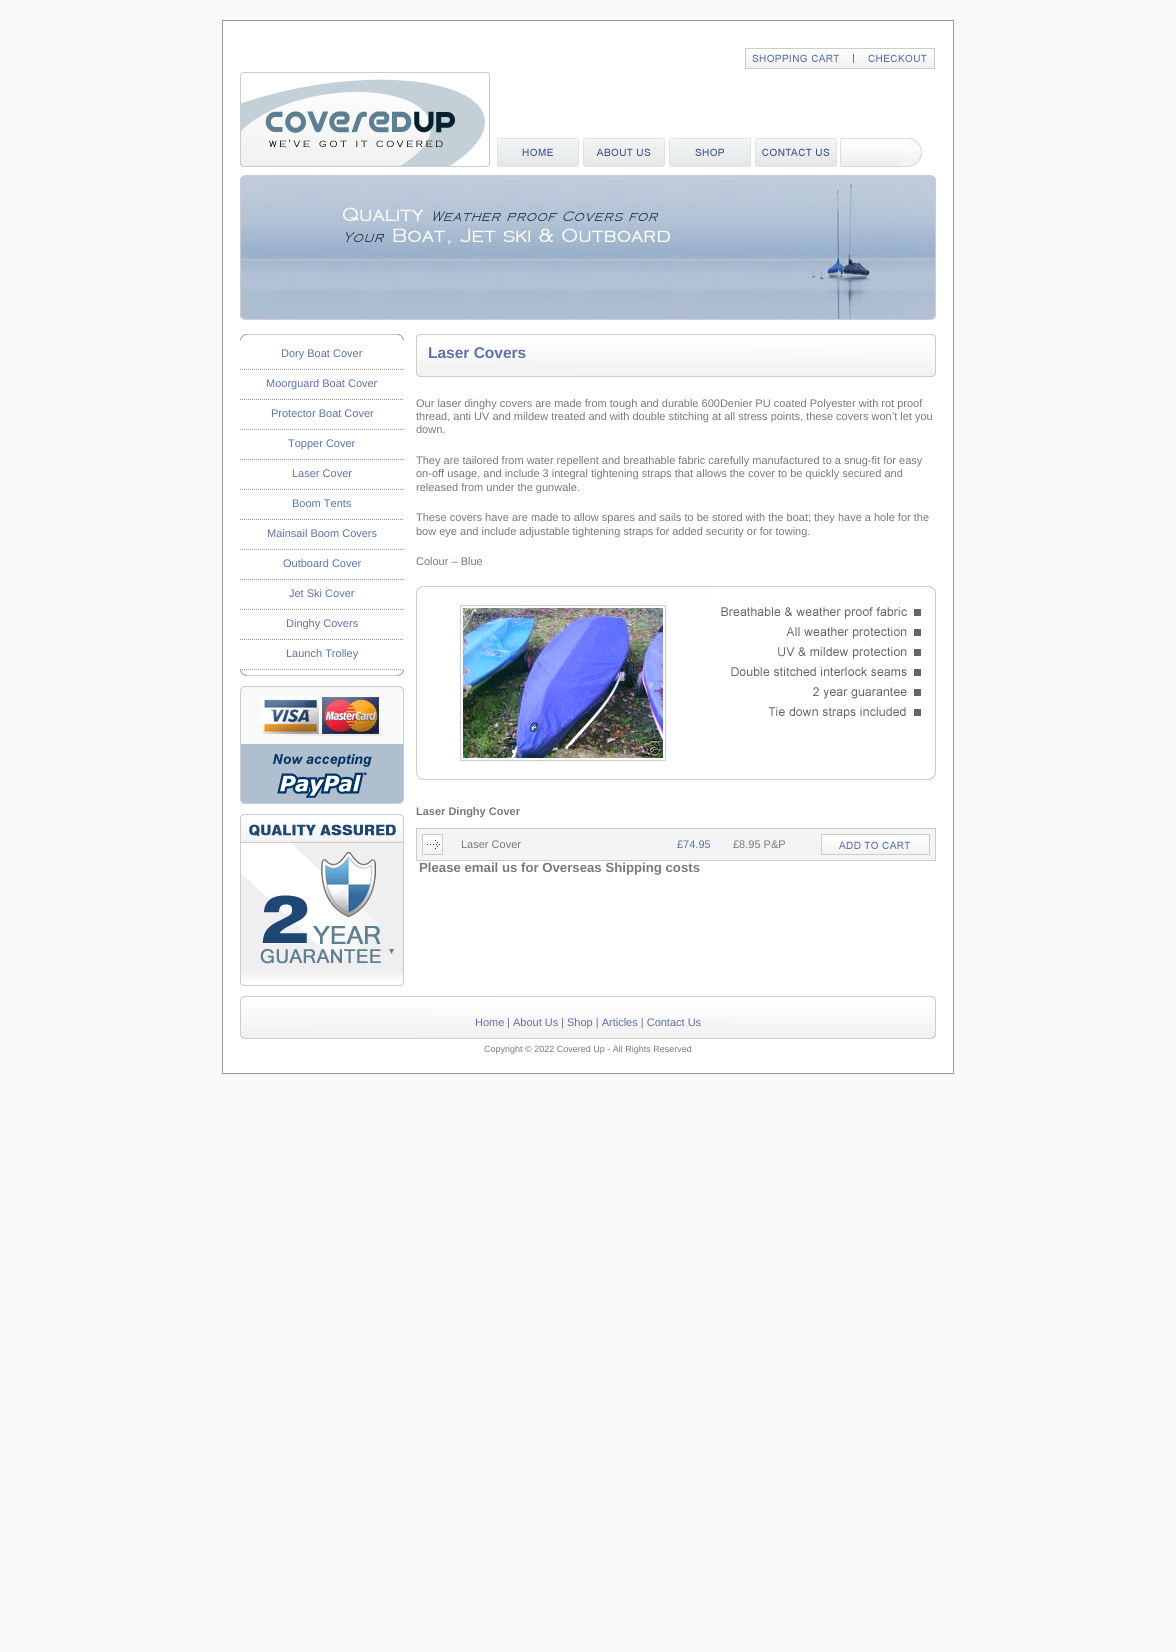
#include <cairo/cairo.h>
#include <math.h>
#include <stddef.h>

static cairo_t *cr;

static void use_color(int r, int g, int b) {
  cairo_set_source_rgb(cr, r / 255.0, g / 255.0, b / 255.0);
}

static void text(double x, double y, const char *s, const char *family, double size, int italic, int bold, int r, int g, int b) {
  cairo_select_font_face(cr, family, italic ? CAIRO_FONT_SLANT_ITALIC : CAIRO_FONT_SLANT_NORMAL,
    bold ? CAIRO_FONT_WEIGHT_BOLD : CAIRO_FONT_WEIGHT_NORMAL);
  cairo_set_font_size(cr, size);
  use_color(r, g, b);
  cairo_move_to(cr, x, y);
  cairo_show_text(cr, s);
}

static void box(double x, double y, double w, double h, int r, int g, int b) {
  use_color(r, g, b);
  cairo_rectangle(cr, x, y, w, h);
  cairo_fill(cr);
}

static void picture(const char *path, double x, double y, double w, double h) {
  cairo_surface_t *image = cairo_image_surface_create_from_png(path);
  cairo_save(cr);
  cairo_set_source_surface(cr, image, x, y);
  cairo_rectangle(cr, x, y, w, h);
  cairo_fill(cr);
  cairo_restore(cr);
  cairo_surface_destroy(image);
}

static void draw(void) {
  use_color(247, 249, 251);
  cairo_paint(cr);
  use_color(255, 255, 255);
  cairo_rectangle(cr, 222.5, 20.5, 731, 1053);
  cairo_fill_preserve(cr);
  use_color(153, 153, 153);
  cairo_set_line_width(cr, 1);
  cairo_stroke(cr);
  picture("img_01.png", 745, 48, 190, 21);
  picture("img_02.png", 240, 72, 250, 95);
  picture("img_03.png", 497, 138, 82, 29);
  picture("img_04.png", 583, 138, 82, 29);
  picture("img_05.png", 669, 138, 82, 29);
  picture("img_06.png", 755, 138, 82, 29);
  picture("img_07.png", 840, 138, 82, 29);
  picture("img_08.png", 240, 175, 696, 145);
  picture("img_09.png", 240, 334, 164, 6);
  cairo_new_path(cr);
  cairo_move_to(cr, 240, 369.5);
  cairo_line_to(cr, 404, 369.5);
  cairo_set_dash(cr, (double[]){1, 1}, 2, 0);
  cairo_stroke(cr);
  cairo_new_path(cr);
  cairo_move_to(cr, 240, 399.5);
  cairo_line_to(cr, 404, 399.5);
  cairo_stroke(cr);
  cairo_new_path(cr);
  cairo_move_to(cr, 240, 429.5);
  cairo_line_to(cr, 404, 429.5);
  cairo_stroke(cr);
  cairo_new_path(cr);
  cairo_move_to(cr, 240, 459.5);
  cairo_line_to(cr, 404, 459.5);
  cairo_stroke(cr);
  cairo_new_path(cr);
  cairo_move_to(cr, 240, 489.5);
  cairo_line_to(cr, 404, 489.5);
  cairo_stroke(cr);
  cairo_new_path(cr);
  cairo_move_to(cr, 240, 519.5);
  cairo_line_to(cr, 404, 519.5);
  cairo_stroke(cr);
  cairo_new_path(cr);
  cairo_move_to(cr, 240, 549.5);
  cairo_line_to(cr, 404, 549.5);
  cairo_stroke(cr);
  cairo_new_path(cr);
  cairo_move_to(cr, 240, 579.5);
  cairo_line_to(cr, 404, 579.5);
  cairo_stroke(cr);
  cairo_new_path(cr);
  cairo_move_to(cr, 240, 609.5);
  cairo_line_to(cr, 404, 609.5);
  cairo_stroke(cr);
  cairo_new_path(cr);
  cairo_move_to(cr, 240, 639.5);
  cairo_line_to(cr, 404, 639.5);
  cairo_stroke(cr);
  cairo_new_path(cr);
  cairo_move_to(cr, 240, 669.5);
  cairo_line_to(cr, 404, 669.5);
  cairo_stroke(cr);
  picture("img_10.png", 240, 670, 164, 6);
  picture("img_11.png", 240, 686, 164, 118);
  picture("img_12.png", 240, 814, 164, 172);
  picture("img_13.png", 416, 334, 520, 43);
  picture("img_14.png", 416, 586, 294, 194);
  picture("img_15.png", 710, 586, 226, 194);
  box(417, 829, 518, 31, 244, 244, 244);
  box(416, 828, 520, 1, 204, 204, 204);
  box(935, 828, 1, 33, 204, 204, 204);
  box(416, 860, 520, 1, 204, 204, 204);
  box(416, 828, 1, 33, 204, 204, 204);
  picture("img_16.png", 422, 834, 21, 21);
  picture("img_17.png", 821, 834, 109, 21);
  picture("img_18.png", 240, 996, 696, 43);
  text(281, 357, "Dory Boat Cover", "Liberation Sans", 11, 0, 0, 91, 114, 172);
  text(266, 387, "Moorguard Boat Cover", "Liberation Sans", 11, 0, 0, 91, 114, 172);
  text(271, 417, "Protector Boat Cover", "Liberation Sans", 11, 0, 0, 91, 114, 172);
  text(288, 447, "Topper Cover", "Liberation Sans", 11, 0, 0, 91, 114, 172);
  text(292, 477, "Laser Cover", "Liberation Sans", 11, 0, 0, 91, 114, 172);
  text(292, 507, "Boom Tents", "Liberation Sans", 11, 0, 0, 91, 114, 172);
  text(267, 537, "Mainsail Boom Covers", "Liberation Sans", 11, 0, 0, 91, 114, 172);
  text(283, 567, "Outboard Cover", "Liberation Sans", 11, 0, 0, 91, 114, 172);
  text(289, 597, "Jet Ski Cover", "Liberation Sans", 11, 0, 0, 91, 114, 172);
  text(286, 627, "Dinghy Covers", "Liberation Sans", 11, 0, 0, 91, 114, 172);
  text(286, 657, "Launch Trolley", "Liberation Sans", 11, 0, 0, 91, 114, 172);
  text(428, 358, "Laser Covers", "Liberation Sans", 15.5, 0, 1, 91, 114, 172);
  text(416, 407, "Our laser dinghy covers are made from tough and durable 600Denier PU coated Polyester with rot proof", "Liberation Sans", 11, 0, 0, 121, 121, 121);
  text(416, 420, "thread, anti UV and mildew treated and with double stitching at all stress points, these covers won’t let you", "Liberation Sans", 11, 0, 0, 121, 121, 121);
  text(416, 433, "down.", "Liberation Sans", 11, 0, 0, 121, 121, 121);
  text(416, 464, "They are tailored from water repellent and breathable fabric carefully manufactured to a snug-fit for easy", "Liberation Sans", 11, 0, 0, 121, 121, 121);
  text(416, 477, "on-off usage, and include 3 integral tightening straps that allows the cover to be quickly secured and", "Liberation Sans", 11, 0, 0, 121, 121, 121);
  text(416, 491, "released from under the gunwale.", "Liberation Sans", 11, 0, 0, 121, 121, 121);
  text(416, 521, "These covers have are made to allow spares and sails to be stored with the boat; they have a hole for the", "Liberation Sans", 11, 0, 0, 121, 121, 121);
  text(416, 535, "bow eye and include adjustable tightening straps for added security or for towing.", "Liberation Sans", 11, 0, 0, 121, 121, 121);
  text(416, 565, "Colour – Blue", "Liberation Sans", 11, 0, 0, 121, 121, 121);
  text(416, 815, "Laser Dinghy Cover", "Liberation Sans", 11, 0, 1, 121, 121, 121);
  text(461, 848, "Laser Cover", "Liberation Sans", 11, 0, 0, 121, 121, 121);
  text(677, 848, "£74.95", "Liberation Sans", 11, 0, 0, 91, 114, 172);
  text(733, 848, "£8.95 P&P", "Liberation Sans", 11, 0, 0, 121, 121, 121);
  text(419, 872, "Please email us for Overseas Shipping costs", "Liberation Sans", 13.2, 0, 1, 121, 121, 121);
  text(475, 1026, "Home", "Liberation Sans", 11, 0, 0, 91, 114, 172);
  text(507, 1026, "|", "Liberation Sans", 11, 0, 0, 121, 121, 121);
  text(513, 1026, "About Us", "Liberation Sans", 11, 0, 0, 91, 114, 172);
  text(561, 1026, "|", "Liberation Sans", 11, 0, 0, 121, 121, 121);
  text(567, 1026, "Shop | Articles | Contact Us", "Liberation Sans", 11, 0, 0, 91, 114, 172);
  text(484, 1052, "Copyright © 2022 Covered Up - All Rights Reserved", "Liberation Sans", 9, 0, 0, 121, 121, 121);
}

int main(void) {
  cairo_surface_t *surface = cairo_image_surface_create(CAIRO_FORMAT_RGB24, 1176, 1652);
  cr = cairo_create(surface);
  cairo_font_options_t *options = cairo_font_options_create();
  cairo_font_options_set_hint_metrics(options, CAIRO_HINT_METRICS_OFF);
  cairo_font_options_set_hint_style(options, CAIRO_HINT_STYLE_NONE);
  cairo_set_font_options(cr, options);
  cairo_set_miter_limit(cr, 4);
  draw();
  cairo_surface_write_to_png(surface, "out.png");
  cairo_font_options_destroy(options);
  cairo_destroy(cr);
  cairo_surface_destroy(surface);
  return 0;
}
